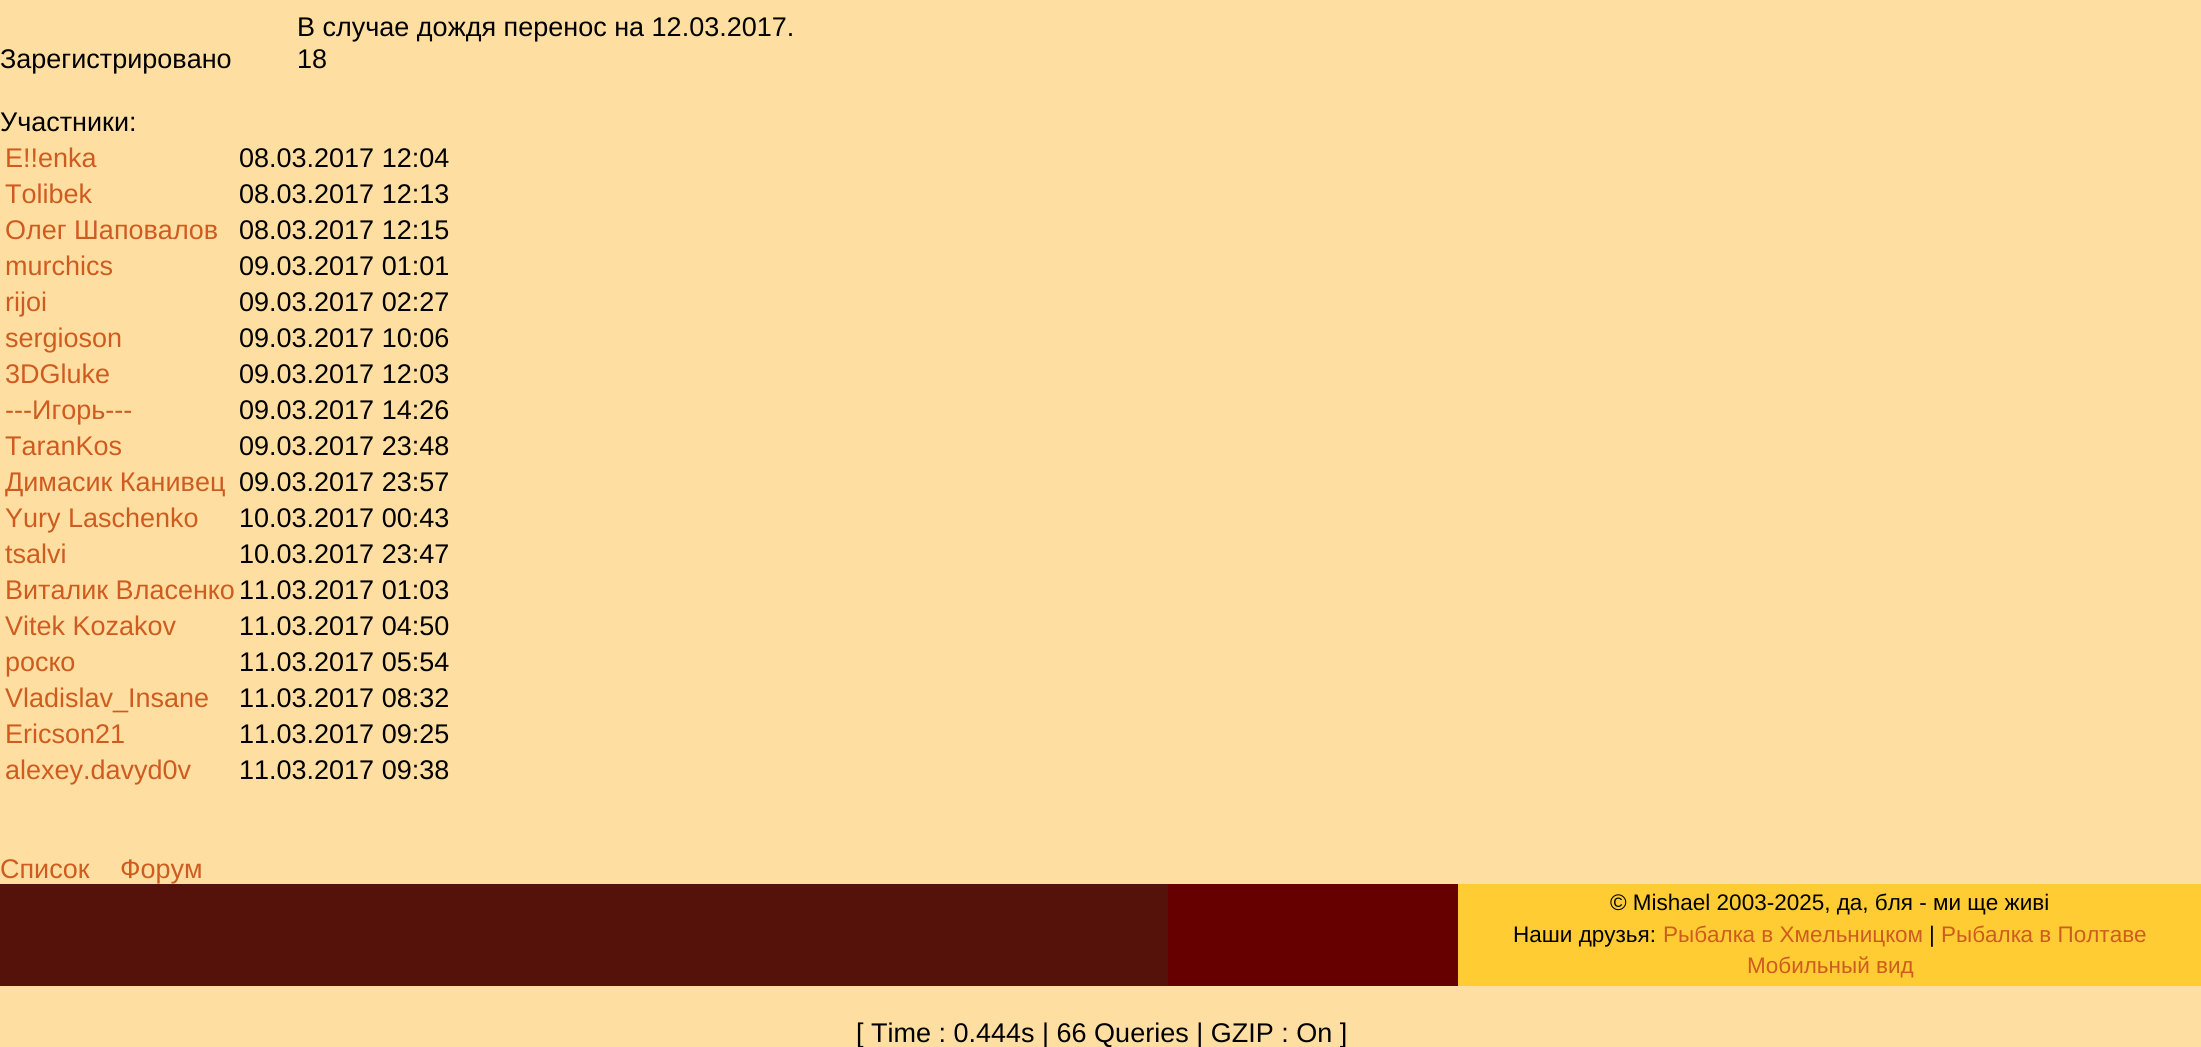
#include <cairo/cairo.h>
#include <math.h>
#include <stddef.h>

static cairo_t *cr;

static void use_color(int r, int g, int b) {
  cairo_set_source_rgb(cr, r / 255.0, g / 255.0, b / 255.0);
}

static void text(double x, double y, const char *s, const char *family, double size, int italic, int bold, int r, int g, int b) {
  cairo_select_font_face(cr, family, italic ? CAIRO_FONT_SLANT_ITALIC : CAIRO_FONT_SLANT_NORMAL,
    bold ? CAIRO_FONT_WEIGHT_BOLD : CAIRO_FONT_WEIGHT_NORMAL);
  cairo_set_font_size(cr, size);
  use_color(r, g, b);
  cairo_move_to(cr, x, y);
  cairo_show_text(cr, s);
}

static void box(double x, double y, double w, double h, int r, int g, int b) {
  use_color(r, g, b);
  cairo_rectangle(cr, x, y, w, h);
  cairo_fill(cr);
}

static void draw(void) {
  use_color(255, 223, 161);
  cairo_paint(cr);
  box(0, 884, 1168, 102, 84, 18, 11);
  box(1168, 884, 290, 102, 102, 0, 0);
  box(1458, 884, 743, 102, 255, 204, 51);
  text(297, 36, "В случае дождя перенос на 12.03.2017.", "Liberation Sans", 27, 0, 0, 0, 0, 0);
  text(0, 68, "Зарегистрировано", "Liberation Sans", 27, 0, 0, 0, 0, 0);
  text(297, 68, "18", "Liberation Sans", 27, 0, 0, 0, 0, 0);
  text(0, 131, "Участники:", "Liberation Sans", 27, 0, 0, 0, 0, 0);
  text(5, 167, "E!!enka", "Liberation Sans", 27, 0, 0, 206, 92, 32);
  text(239, 167, "08.03.2017 12:04", "Liberation Sans", 27, 0, 0, 0, 0, 0);
  text(5, 203, "Tolibek", "Liberation Sans", 27, 0, 0, 206, 92, 32);
  text(239, 203, "08.03.2017 12:13", "Liberation Sans", 27, 0, 0, 0, 0, 0);
  text(5, 239, "Олег Шаповалов", "Liberation Sans", 27, 0, 0, 206, 92, 32);
  text(239, 239, "08.03.2017 12:15", "Liberation Sans", 27, 0, 0, 0, 0, 0);
  text(5, 275, "murchics", "Liberation Sans", 27, 0, 0, 206, 92, 32);
  text(239, 275, "09.03.2017 01:01", "Liberation Sans", 27, 0, 0, 0, 0, 0);
  text(5, 311, "rijoi", "Liberation Sans", 27, 0, 0, 206, 92, 32);
  text(239, 311, "09.03.2017 02:27", "Liberation Sans", 27, 0, 0, 0, 0, 0);
  text(5, 347, "sergioson", "Liberation Sans", 27, 0, 0, 206, 92, 32);
  text(239, 347, "09.03.2017 10:06", "Liberation Sans", 27, 0, 0, 0, 0, 0);
  text(5, 383, "3DGluke", "Liberation Sans", 27, 0, 0, 206, 92, 32);
  text(239, 383, "09.03.2017 12:03", "Liberation Sans", 27, 0, 0, 0, 0, 0);
  text(5, 419, "---Игорь---", "Liberation Sans", 27, 0, 0, 206, 92, 32);
  text(239, 419, "09.03.2017 14:26", "Liberation Sans", 27, 0, 0, 0, 0, 0);
  text(5, 455, "TaranKos", "Liberation Sans", 27, 0, 0, 206, 92, 32);
  text(239, 455, "09.03.2017 23:48", "Liberation Sans", 27, 0, 0, 0, 0, 0);
  text(5, 491, "Димасик Канивец", "Liberation Sans", 27, 0, 0, 206, 92, 32);
  text(239, 491, "09.03.2017 23:57", "Liberation Sans", 27, 0, 0, 0, 0, 0);
  text(5, 527, "Yury Laschenko", "Liberation Sans", 27, 0, 0, 206, 92, 32);
  text(239, 527, "10.03.2017 00:43", "Liberation Sans", 27, 0, 0, 0, 0, 0);
  text(5, 563, "tsalvi", "Liberation Sans", 27, 0, 0, 206, 92, 32);
  text(239, 563, "10.03.2017 23:47", "Liberation Sans", 27, 0, 0, 0, 0, 0);
  text(5, 599, "Виталик Власенко", "Liberation Sans", 27, 0, 0, 206, 92, 32);
  text(239, 599, "11.03.2017 01:03", "Liberation Sans", 27, 0, 0, 0, 0, 0);
  text(5, 635, "Vitek Kozakov", "Liberation Sans", 27, 0, 0, 206, 92, 32);
  text(239, 635, "11.03.2017 04:50", "Liberation Sans", 27, 0, 0, 0, 0, 0);
  text(5, 671, "роско", "Liberation Sans", 27, 0, 0, 206, 92, 32);
  text(239, 671, "11.03.2017 05:54", "Liberation Sans", 27, 0, 0, 0, 0, 0);
  text(5, 707, "Vladislav_Insane", "Liberation Sans", 27, 0, 0, 206, 92, 32);
  text(239, 707, "11.03.2017 08:32", "Liberation Sans", 27, 0, 0, 0, 0, 0);
  text(5, 743, "Ericson21", "Liberation Sans", 27, 0, 0, 206, 92, 32);
  text(239, 743, "11.03.2017 09:25", "Liberation Sans", 27, 0, 0, 0, 0, 0);
  text(5, 779, "alexey.davyd0v", "Liberation Sans", 27, 0, 0, 206, 92, 32);
  text(239, 779, "11.03.2017 09:38", "Liberation Sans", 27, 0, 0, 0, 0, 0);
  text(0, 878, "Список", "Liberation Sans", 27, 0, 0, 206, 92, 32);
  text(120, 878, "Форум", "Liberation Sans", 27, 0, 0, 206, 92, 32);
  text(1610, 910, "© Mishael 2003-2025, да, бля - ми ще живі", "Liberation Sans", 22.5, 0, 0, 0, 0, 0);
  text(1513, 942, "Наши друзья:", "Liberation Sans", 22.5, 0, 0, 0, 0, 0);
  text(1663, 942, "Рыбалка в Хмельницком", "Liberation Sans", 22.5, 0, 0, 206, 92, 32);
  text(1929, 942, "|", "Liberation Sans", 22.5, 0, 0, 0, 0, 0);
  text(1941, 942, "Рыбалка в Полтаве", "Liberation Sans", 22.5, 0, 0, 206, 92, 32);
  text(1747, 973, "Мобильный вид", "Liberation Sans", 22.5, 0, 0, 206, 92, 32);
  text(856, 1042, "[ Time : 0.444s | 66 Queries | GZIP : On ]", "Liberation Sans", 27, 0, 0, 0, 0, 0);
}

int main(void) {
  cairo_surface_t *surface = cairo_image_surface_create(CAIRO_FORMAT_RGB24, 2201, 1047);
  cr = cairo_create(surface);
  cairo_font_options_t *options = cairo_font_options_create();
  cairo_font_options_set_hint_metrics(options, CAIRO_HINT_METRICS_OFF);
  cairo_font_options_set_hint_style(options, CAIRO_HINT_STYLE_NONE);
  cairo_set_font_options(cr, options);
  cairo_set_miter_limit(cr, 4);
  draw();
  cairo_surface_write_to_png(surface, "out.png");
  cairo_font_options_destroy(options);
  cairo_destroy(cr);
  cairo_surface_destroy(surface);
  return 0;
}
